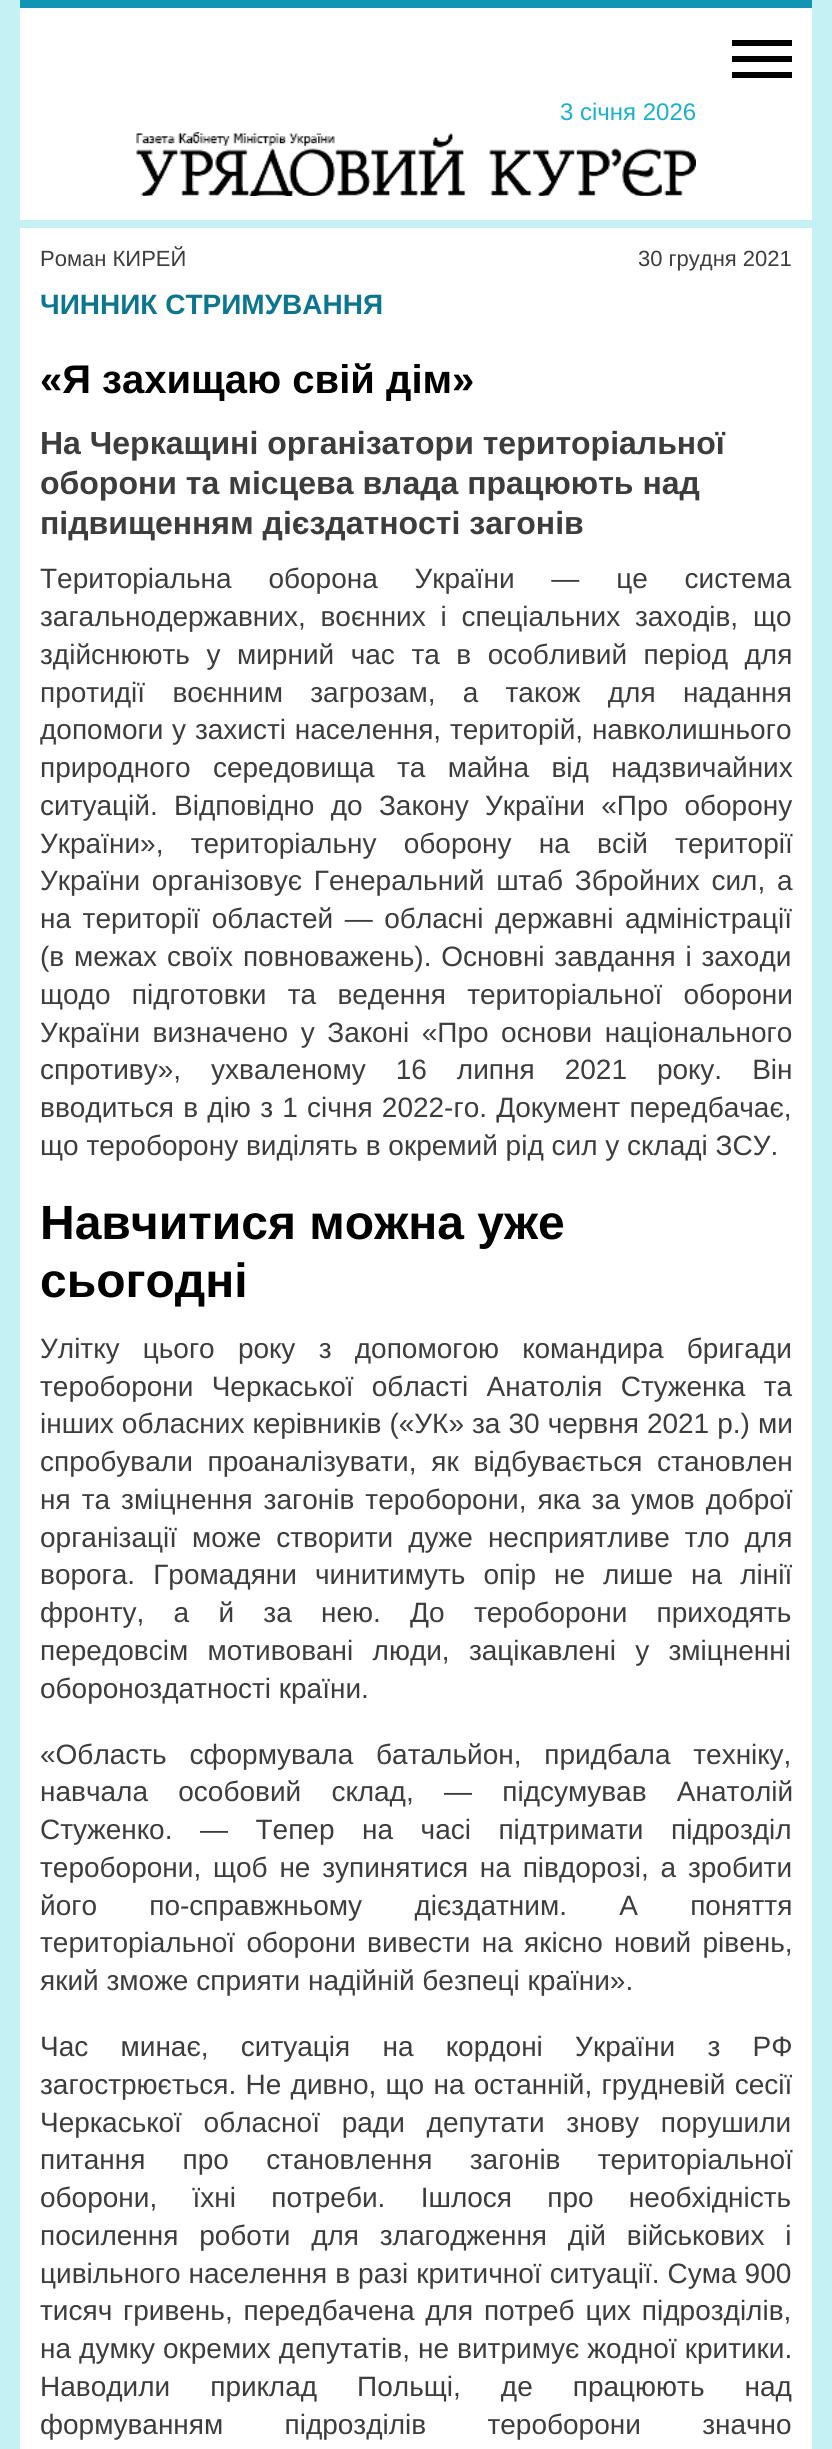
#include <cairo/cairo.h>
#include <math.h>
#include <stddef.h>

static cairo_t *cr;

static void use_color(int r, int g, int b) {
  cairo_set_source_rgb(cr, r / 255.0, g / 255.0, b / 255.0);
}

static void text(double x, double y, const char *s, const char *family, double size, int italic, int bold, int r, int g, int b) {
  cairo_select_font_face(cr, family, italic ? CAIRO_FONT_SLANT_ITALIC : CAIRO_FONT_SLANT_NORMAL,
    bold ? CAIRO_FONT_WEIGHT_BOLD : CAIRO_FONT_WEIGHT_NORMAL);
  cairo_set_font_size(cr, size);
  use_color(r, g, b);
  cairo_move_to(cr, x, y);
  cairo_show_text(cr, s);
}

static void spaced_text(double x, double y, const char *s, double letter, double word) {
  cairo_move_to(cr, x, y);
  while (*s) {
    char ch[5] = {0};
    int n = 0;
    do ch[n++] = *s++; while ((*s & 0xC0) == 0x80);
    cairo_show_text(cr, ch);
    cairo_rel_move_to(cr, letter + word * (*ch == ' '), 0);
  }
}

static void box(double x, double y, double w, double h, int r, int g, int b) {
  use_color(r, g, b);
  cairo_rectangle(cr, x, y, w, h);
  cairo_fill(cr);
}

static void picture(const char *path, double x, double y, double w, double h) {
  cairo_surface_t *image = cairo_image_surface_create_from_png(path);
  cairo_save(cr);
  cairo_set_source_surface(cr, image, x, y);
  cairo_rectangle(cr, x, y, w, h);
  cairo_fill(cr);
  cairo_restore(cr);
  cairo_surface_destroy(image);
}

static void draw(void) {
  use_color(195, 241, 244);
  cairo_paint(cr);
  box(20, 8, 792, 2441, 255, 255, 255);
  box(20, 0, 792, 8, 16, 150, 180);
  box(20, 220, 792, 8, 195, 241, 244);
  box(732, 40, 60, 6, 0, 0, 0);
  box(732, 56, 60, 6, 0, 0, 0);
  box(732, 72, 60, 6, 0, 0, 0);
  picture("img_01.png", 136, 132, 560, 64);
  text(560, 120, "3 січня 2026", "Liberation Sans", 24, 0, 0, 26, 176, 208);
  text(40, 266, "Роман КИРЕЙ", "Liberation Sans", 22, 0, 0, 61, 61, 61);
  text(638, 266, "30 грудня 2021", "Liberation Sans", 22, 0, 0, 61, 61, 61);
  text(40, 314, "ЧИННИК СТРИМУВАННЯ", "Liberation Sans", 28, 0, 1, 11, 118, 142);
  text(40, 393, "«Я захищаю свій дім»", "Liberation Sans", 40, 0, 1, 0, 0, 0);
  text(40, 454, "На Черкащині організатори територіальної", "Liberation Sans", 32, 0, 1, 61, 61, 61);
  text(40, 494, "оборони та місцева влада працюють над", "Liberation Sans", 32, 0, 1, 61, 61, 61);
  text(40, 534, "підвищенням дієздатності загонів", "Liberation Sans", 32, 0, 1, 61, 61, 61);
  cairo_select_font_face(cr, "Liberation Sans", CAIRO_FONT_SLANT_NORMAL, CAIRO_FONT_WEIGHT_NORMAL);
  cairo_set_font_size(cr, 28);
  spaced_text(40, 588, "Територіальна оборона України — це система", 0, 29);
  spaced_text(40, 626, "загальнодержавних, воєнних і спеціальних заходів, що", 0, 7);
  spaced_text(40, 664, "здійснюють у мирний час та в особливий період для", 0, 8.75);
  spaced_text(40, 702, "протидії воєнним загрозам, а також для надання", 0, 19.5);
  spaced_text(40, 739, "допомоги у захисті населення, територій, навколишнього", 0, 1);
  spaced_text(40, 777, "природного середовища та майна від надзвичайних", 0, 14.5);
  spaced_text(40, 815, "ситуацій. Відповідно до Закону України «Про оборону", 0, 8.5);
  spaced_text(40, 853, "України», територіальну оборону на всій території", 0, 19.5);
  spaced_text(40, 890, "України організовує Генеральний штаб Збройних сил, а", 0, 4);
  spaced_text(40, 928, "на території областей — обласні державні адміністрації", 0, 3.75);
  spaced_text(40, 966, "(в межах своїх повноважень). Основні завдання і заходи", 0, 2);
  spaced_text(40, 1004, "щодо підготовки та ведення територіальної оборони", 0, 13.5);
  spaced_text(40, 1042, "України визначено у Законі «Про основи національного", 0, 4.75);
  spaced_text(40, 1079, "спротиву», ухваленому 16 липня 2021 року. Він", 0, 22.25);
  spaced_text(40, 1117, "вводиться в дію з 1 січня 2022-го. Документ передбачає,", 0, 1.5);
  text(40, 1155, "що тероборону виділять в окремий рід сил у складі ЗСУ.", "Liberation Sans", 28, 0, 0, 61, 61, 61);
  text(40, 1239, "Навчитися можна уже", "Liberation Sans", 48, 0, 1, 0, 0, 0);
  text(40, 1297, "сьогодні", "Liberation Sans", 48, 0, 1, 0, 0, 0);
  cairo_select_font_face(cr, "Liberation Sans", CAIRO_FONT_SLANT_NORMAL, CAIRO_FONT_WEIGHT_NORMAL);
  cairo_set_font_size(cr, 28);
  use_color(61, 61, 61);
  spaced_text(40, 1358, "Улітку цього року з допомогою командира бригади", 0, 15.5);
  spaced_text(40, 1396, "тероборони Черкаської області Анатолія Стуженка та", 0, 10.5);
  spaced_text(40, 1433, "інших обласних керівників («УК» за 30 червня 2021 р.) ми", 0, 0.25);
  spaced_text(40, 1471, "спробували проаналізувати, як відбувається становлен", 0, 7);
  spaced_text(40, 1509, "ня та зміцнення загонів тероборони, яка за умов доброї", 0, 3.25);
  spaced_text(40, 1547, "організації може створити дуже несприятливе тло для", 0, 7.25);
  spaced_text(40, 1584, "ворога. Громадяни чинитимуть опір не лише на лінії", 0, 10.25);
  spaced_text(40, 1622, "фронту, а й за нею. До тероборони приходять", 0, 21.5);
  spaced_text(40, 1660, "передовсім мотивовані люди, зацікавлені у зміцненні", 0, 11.5);
  text(40, 1698, "обороноздатності країни.", "Liberation Sans", 28, 0, 0, 61, 61, 61);
  spaced_text(40, 1764, "«Область сформувала батальйон, придбала техніку,", 0, 15);
  spaced_text(40, 1801, "навчала особовий склад, — підсумував Анатолій", 0, 22.5);
  spaced_text(40, 1839, "Стуженко. — Тепер на часі підтримати підрозділ", 0, 19.75);
  spaced_text(40, 1877, "тероборони, щоб не зупинятися на півдорозі, а зробити", 0, 4);
  spaced_text(40, 1915, "його по-справжньому дієздатним. А поняття", 0, 44.5);
  spaced_text(40, 1952, "територіальної оборони вивести на якісно новий рівень,", 0, 3.5);
  text(40, 1990, "який зможе сприяти надійній безпеці країни».", "Liberation Sans", 28, 0, 0, 61, 61, 61);
  spaced_text(40, 2056, "Час минає, ситуація на кордоні України з РФ", 0, 24.5);
  spaced_text(40, 2094, "загострюється. Не дивно, що на останній, грудневій сесії", 0, 1.5);
  spaced_text(40, 2132, "Черкаської обласної ради депутати знову порушили", 0, 14);
  spaced_text(40, 2169, "питання про становлення загонів територіальної", 0, 29.5);
  spaced_text(40, 2207, "оборони, їхні потреби. Ішлося про необхідність", 0, 27.5);
  spaced_text(40, 2245, "посилення роботи для злагодження дій військових і", 0, 13);
  spaced_text(40, 2283, "цивільного населення в разі критичної ситуації. Сума 900", 0, 0.25);
  spaced_text(40, 2320, "тисяч гривень, передбачена для потреб цих підрозділів,", 0, 3);
  spaced_text(40, 2358, "на думку окремих депутатів, не витримує жодної критики.", 0, 0.25);
  spaced_text(40, 2396, "Наводили приклад Польщі, де працюють над", 0, 32.25);
  spaced_text(40, 2434, "формуванням підрозділів тероборони значно", 0, 53.5);
}

int main(void) {
  cairo_surface_t *surface = cairo_image_surface_create(CAIRO_FORMAT_RGB24, 832, 2449);
  cr = cairo_create(surface);
  cairo_font_options_t *options = cairo_font_options_create();
  cairo_font_options_set_hint_metrics(options, CAIRO_HINT_METRICS_OFF);
  cairo_font_options_set_hint_style(options, CAIRO_HINT_STYLE_NONE);
  cairo_set_font_options(cr, options);
  cairo_set_miter_limit(cr, 4);
  draw();
  cairo_surface_write_to_png(surface, "out.png");
  cairo_font_options_destroy(options);
  cairo_destroy(cr);
  cairo_surface_destroy(surface);
  return 0;
}
